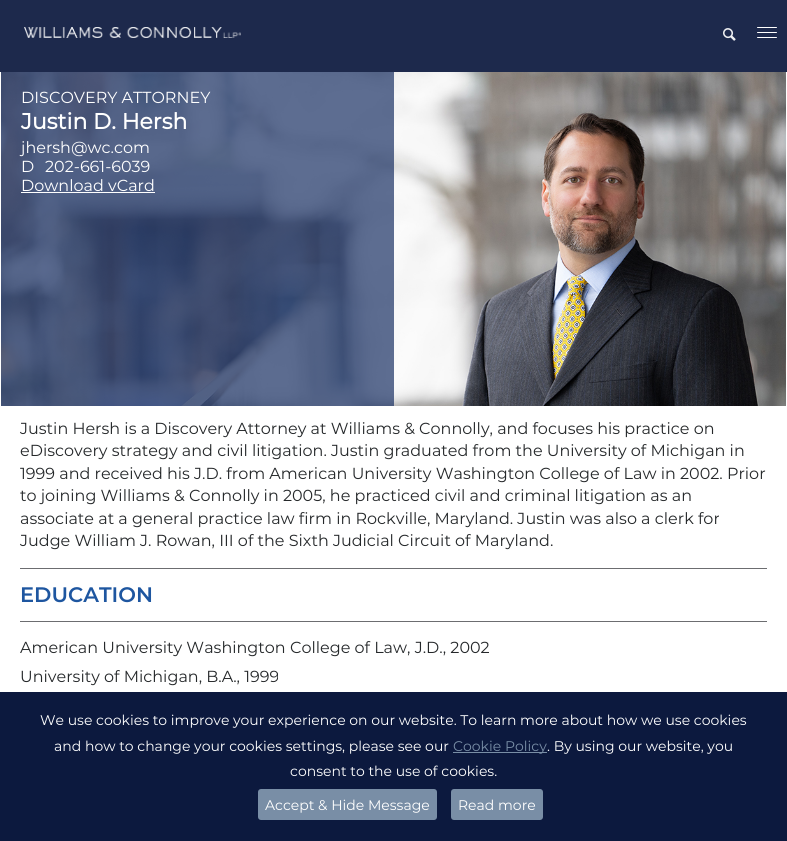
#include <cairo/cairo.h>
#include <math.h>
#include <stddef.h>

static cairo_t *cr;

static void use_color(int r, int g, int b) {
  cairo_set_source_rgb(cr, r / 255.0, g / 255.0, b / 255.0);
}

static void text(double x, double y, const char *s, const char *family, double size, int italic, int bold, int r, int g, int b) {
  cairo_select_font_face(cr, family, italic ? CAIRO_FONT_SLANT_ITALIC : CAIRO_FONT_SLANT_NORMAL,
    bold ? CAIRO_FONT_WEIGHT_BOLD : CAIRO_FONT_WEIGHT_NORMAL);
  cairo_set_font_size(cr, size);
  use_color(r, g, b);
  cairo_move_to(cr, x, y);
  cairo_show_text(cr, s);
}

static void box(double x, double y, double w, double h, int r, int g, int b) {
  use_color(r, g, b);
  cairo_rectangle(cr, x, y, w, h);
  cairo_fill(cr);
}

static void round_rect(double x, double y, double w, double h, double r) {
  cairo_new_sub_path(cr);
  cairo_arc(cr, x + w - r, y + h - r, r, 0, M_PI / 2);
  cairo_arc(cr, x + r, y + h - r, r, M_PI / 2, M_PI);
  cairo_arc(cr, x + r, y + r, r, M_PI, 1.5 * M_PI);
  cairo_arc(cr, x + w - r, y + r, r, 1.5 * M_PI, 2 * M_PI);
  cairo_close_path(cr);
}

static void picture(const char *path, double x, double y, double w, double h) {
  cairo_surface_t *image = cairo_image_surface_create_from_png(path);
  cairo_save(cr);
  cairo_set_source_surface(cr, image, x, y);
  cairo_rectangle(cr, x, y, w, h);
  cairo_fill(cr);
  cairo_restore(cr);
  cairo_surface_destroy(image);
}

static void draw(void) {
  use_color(255, 255, 255);
  cairo_paint(cr);
  box(0, 0, 787, 72, 29, 41, 76);
  picture("img_01.png", 24, 27, 217, 11);
  picture("img_02.png", 723, 28, 13, 13);
  use_color(255, 255, 255);
  round_rect(757, 27, 20, 1, 0.5);
  cairo_fill(cr);
  round_rect(757, 32, 20, 1, 0.5);
  cairo_fill(cr);
  round_rect(757, 37, 20, 1, 0.5);
  cairo_fill(cr);
  picture("img_03.png", 1, 72, 785, 334);
  cairo_set_source_rgba(cr, 0.102, 0.192, 0.396, 0.7);
  cairo_rectangle(cr, 1, 72, 393, 334);
  cairo_fill(cr);
  box(21, 192, 134, 1, 255, 255, 255);
  box(20, 568, 747, 1, 108, 109, 112);
  box(20, 621, 747, 1, 108, 109, 112);
  box(0, 692, 787, 149, 12, 25, 62);
  box(453, 752, 94, 1, 121, 142, 166);
  round_rect(258, 789, 179, 31, 3);
  cairo_fill(cr);
  round_rect(451, 789, 92, 31, 3);
  cairo_fill(cr);
  text(21, 103, "DISCOVERY ATTORNEY", "Montserrat", 16, 0, 0, 255, 255, 255);
  text(21, 129, "Justin D. Hersh", "Montserrat", 22, 0, 1, 255, 255, 255);
  text(21, 153, "jhersh@wc.com", "Montserrat", 16, 0, 0, 255, 255, 255);
  text(21, 172, "D", "Montserrat", 16, 0, 0, 255, 255, 255);
  text(45, 172, "202-661-6039", "Montserrat", 16, 0, 0, 255, 255, 255);
  text(21, 191, "Download vCard", "Montserrat", 16, 0, 0, 255, 255, 255);
  text(20, 434, "Justin Hersh is a Discovery Attorney at Williams & Connolly, and focuses his practice on", "Montserrat", 16, 0, 0, 37, 40, 42);
  text(20, 456, "eDiscovery strategy and civil litigation. Justin graduated from the University of Michigan in", "Montserrat", 16, 0, 0, 37, 40, 42);
  text(20, 479, "1999 and received his J.D. from American University Washington College of Law in 2002. Prior", "Montserrat", 16, 0, 0, 37, 40, 42);
  text(20, 501, "to joining Williams & Connolly in 2005, he practiced civil and criminal litigation as an", "Montserrat", 16, 0, 0, 37, 40, 42);
  text(20, 524, "associate at a general practice law firm in Rockville, Maryland. Justin was also a clerk for", "Montserrat", 16, 0, 0, 37, 40, 42);
  text(20, 546, "Judge William J. Rowan, III of the Sixth Judicial Circuit of Maryland.", "Montserrat", 16, 0, 0, 37, 40, 42);
  text(20, 602, "EDUCATION", "Montserrat SemiBold", 21, 0, 0, 30, 86, 160);
  text(20, 653, "American University Washington College of Law, J.D., 2002", "Montserrat", 16, 0, 0, 37, 40, 42);
  text(20, 682, "University of Michigan, B.A., 1999", "Montserrat", 16, 0, 0, 37, 40, 42);
  text(40, 725, "We use cookies to improve your experience on our website. To learn more about how we use cookies", "Montserrat", 14, 0, 0, 255, 255, 255);
  text(54, 751, "and how to change your cookies settings, please see our", "Montserrat", 14, 0, 0, 255, 255, 255);
  text(453, 751, "Cookie Policy", "Montserrat", 14, 0, 0, 121, 142, 166);
  text(547, 751, ". By using our website, you", "Montserrat", 14, 0, 0, 255, 255, 255);
  text(290, 776, "consent to the use of cookies.", "Montserrat", 14, 0, 0, 255, 255, 255);
  text(265, 810, "Accept & Hide Message", "Montserrat", 14, 0, 0, 255, 255, 255);
  text(458, 810, "Read more", "Montserrat", 14, 0, 0, 255, 255, 255);
}

int main(void) {
  cairo_surface_t *surface = cairo_image_surface_create(CAIRO_FORMAT_RGB24, 787, 841);
  cr = cairo_create(surface);
  cairo_font_options_t *options = cairo_font_options_create();
  cairo_font_options_set_hint_metrics(options, CAIRO_HINT_METRICS_OFF);
  cairo_font_options_set_hint_style(options, CAIRO_HINT_STYLE_NONE);
  cairo_set_font_options(cr, options);
  cairo_set_miter_limit(cr, 4);
  draw();
  cairo_surface_write_to_png(surface, "out.png");
  cairo_font_options_destroy(options);
  cairo_destroy(cr);
  cairo_surface_destroy(surface);
  return 0;
}
